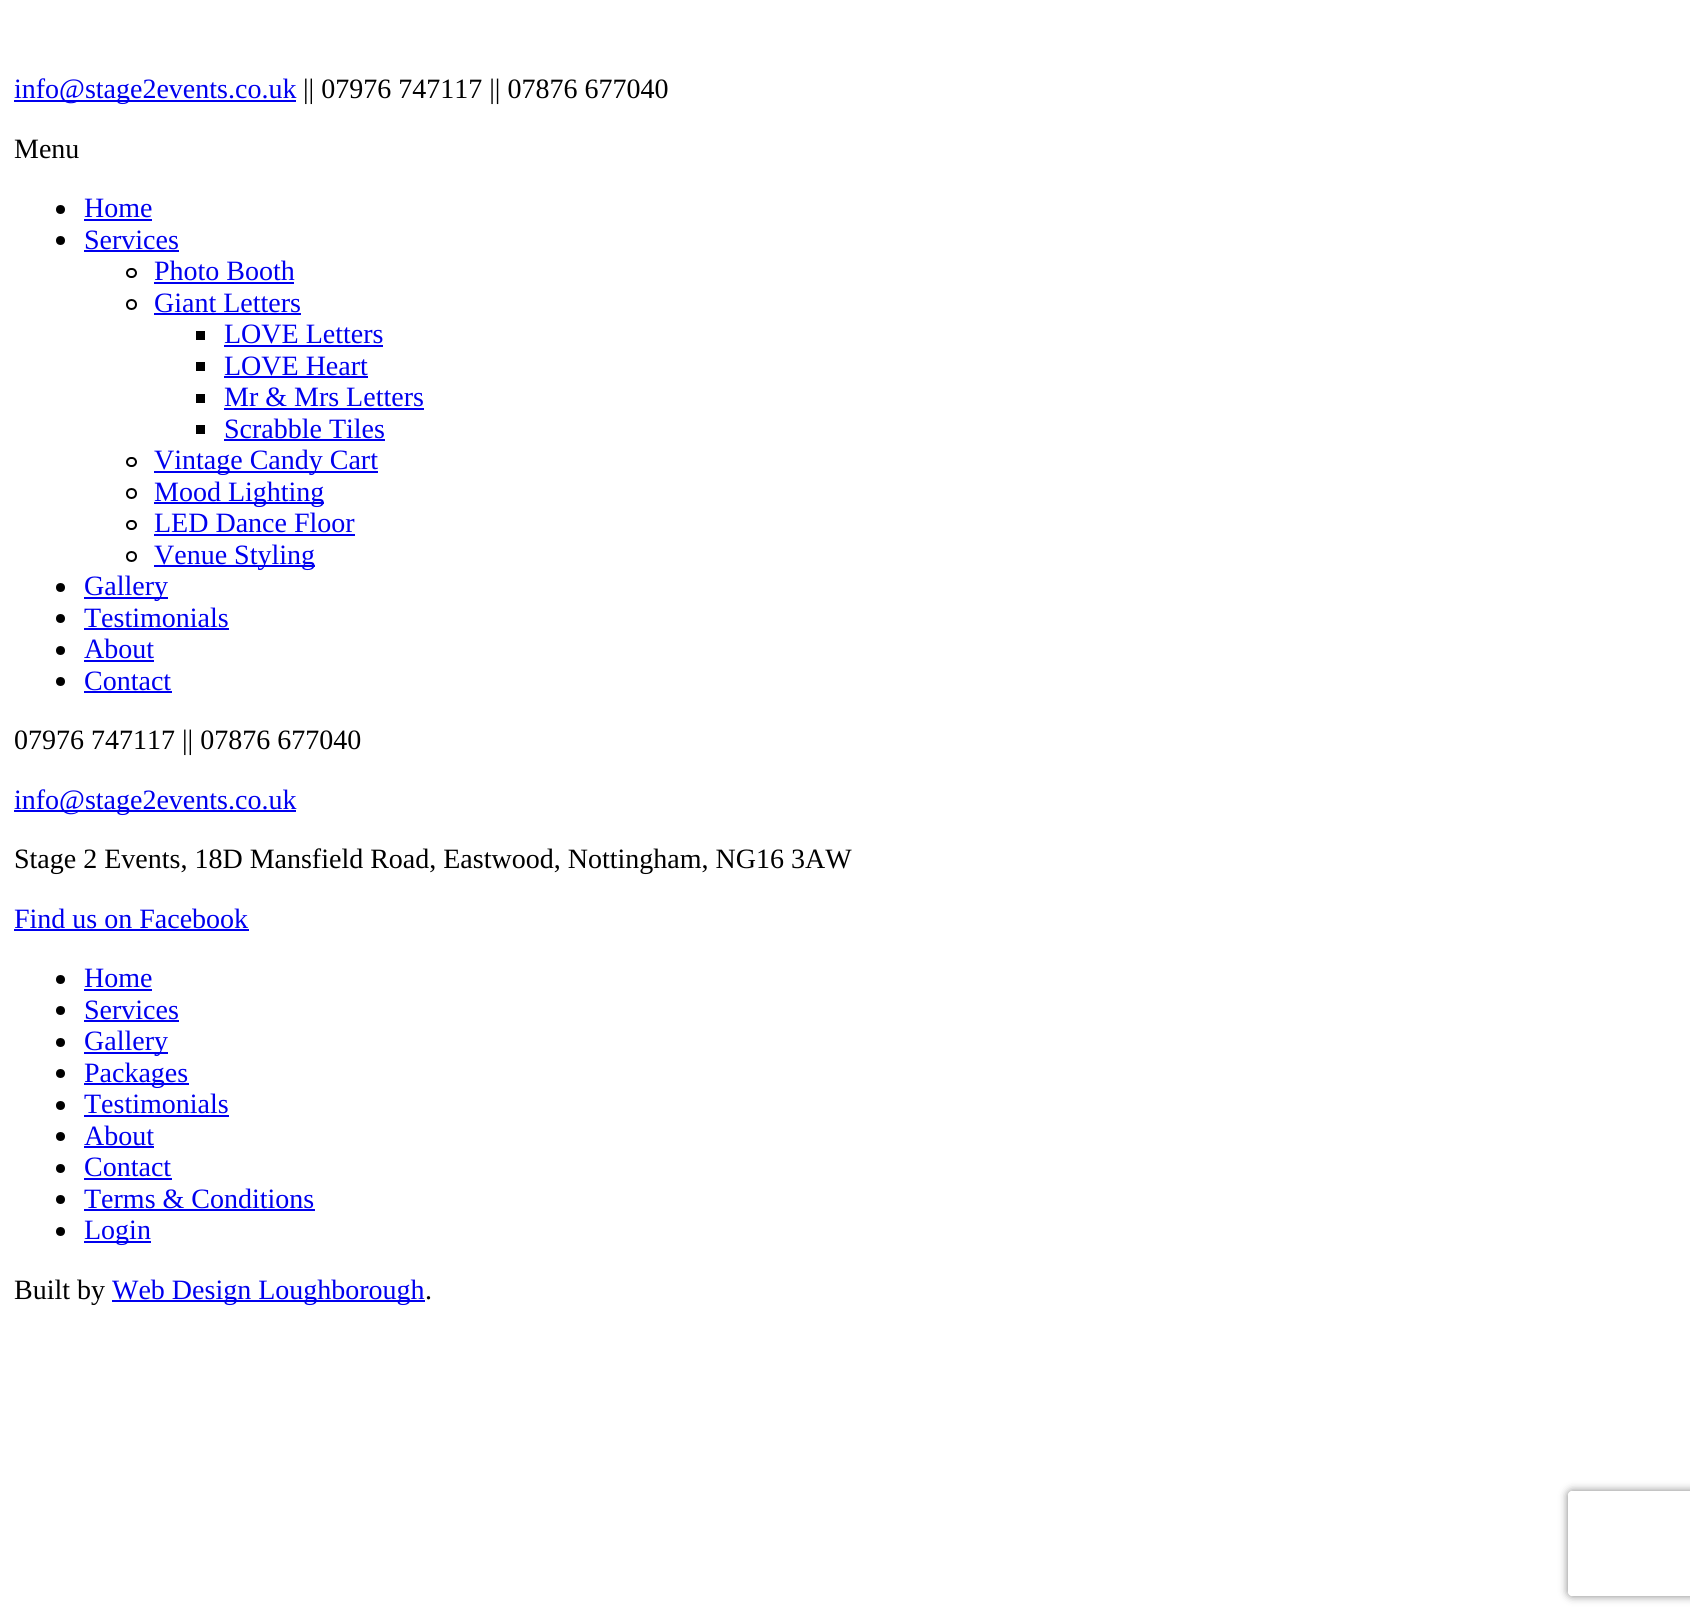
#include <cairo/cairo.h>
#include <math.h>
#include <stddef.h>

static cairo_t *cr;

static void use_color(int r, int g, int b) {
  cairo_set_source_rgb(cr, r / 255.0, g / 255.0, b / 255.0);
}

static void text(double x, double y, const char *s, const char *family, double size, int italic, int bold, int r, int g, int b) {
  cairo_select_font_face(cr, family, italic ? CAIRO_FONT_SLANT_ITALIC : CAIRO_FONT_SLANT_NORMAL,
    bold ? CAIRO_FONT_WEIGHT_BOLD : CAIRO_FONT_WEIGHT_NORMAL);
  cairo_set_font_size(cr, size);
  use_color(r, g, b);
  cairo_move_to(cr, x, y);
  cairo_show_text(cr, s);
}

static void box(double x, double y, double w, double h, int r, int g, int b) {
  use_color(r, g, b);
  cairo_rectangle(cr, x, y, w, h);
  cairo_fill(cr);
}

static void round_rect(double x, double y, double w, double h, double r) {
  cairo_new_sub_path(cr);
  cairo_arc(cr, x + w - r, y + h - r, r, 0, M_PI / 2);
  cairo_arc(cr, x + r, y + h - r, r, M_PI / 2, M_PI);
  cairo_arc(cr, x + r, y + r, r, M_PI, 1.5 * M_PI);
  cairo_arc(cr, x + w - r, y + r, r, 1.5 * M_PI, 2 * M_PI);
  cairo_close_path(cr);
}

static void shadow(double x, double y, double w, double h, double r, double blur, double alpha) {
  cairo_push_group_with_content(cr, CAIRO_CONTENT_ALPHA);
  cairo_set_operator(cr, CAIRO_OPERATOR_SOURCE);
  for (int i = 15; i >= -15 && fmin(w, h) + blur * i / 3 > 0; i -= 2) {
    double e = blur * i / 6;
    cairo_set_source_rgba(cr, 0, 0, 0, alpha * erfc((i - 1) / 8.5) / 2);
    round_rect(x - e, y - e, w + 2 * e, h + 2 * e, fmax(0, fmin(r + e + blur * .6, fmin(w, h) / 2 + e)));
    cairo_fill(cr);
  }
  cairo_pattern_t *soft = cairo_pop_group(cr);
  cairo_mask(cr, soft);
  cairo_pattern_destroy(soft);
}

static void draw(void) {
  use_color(255, 255, 255);
  cairo_paint(cr);
  box(14, 100, 282, 2, 0, 0, 238);
  use_color(0, 0, 0);
  cairo_arc(cr, 60.5, 209.5, 4.5, 0, 2 * M_PI);
  cairo_fill(cr);
  box(84, 219, 68, 2, 0, 0, 238);
  use_color(0, 0, 0);
  cairo_arc(cr, 60.5, 240.5, 4.5, 0, 2 * M_PI);
  cairo_fill(cr);
  box(84, 250, 95, 2, 0, 0, 238);
  round_rect(127, 269, 9, 8, 4);
  use_color(0, 0, 0);
  cairo_stroke(cr);
  box(154, 282, 140, 2, 0, 0, 238);
  cairo_arc(cr, 131.5, 304.5, 4.5, 0, 2 * M_PI);
  use_color(0, 0, 0);
  cairo_stroke(cr);
  box(154, 313, 147, 2, 0, 0, 238);
  box(196, 331, 9, 9, 0, 0, 0);
  box(224, 345, 159, 2, 0, 0, 238);
  box(196, 362, 9, 9, 0, 0, 0);
  box(224, 376, 144, 2, 0, 0, 238);
  box(196, 394, 9, 9, 0, 0, 0);
  box(224, 408, 200, 2, 0, 0, 238);
  box(196, 425, 9, 9, 0, 0, 0);
  box(224, 439, 161, 2, 0, 0, 238);
  round_rect(127, 458, 9, 8, 4);
  use_color(0, 0, 0);
  cairo_stroke(cr);
  box(154, 471, 224, 2, 0, 0, 238);
  cairo_arc(cr, 131.5, 493.5, 4.5, 0, 2 * M_PI);
  use_color(0, 0, 0);
  cairo_stroke(cr);
  box(154, 502, 170, 2, 0, 0, 238);
  round_rect(127, 521, 9, 8, 4);
  use_color(0, 0, 0);
  cairo_stroke(cr);
  box(154, 534, 201, 2, 0, 0, 238);
  cairo_arc(cr, 131.5, 556.5, 4.5, 0, 2 * M_PI);
  use_color(0, 0, 0);
  cairo_stroke(cr);
  box(154, 565, 161, 2, 0, 0, 238);
  use_color(0, 0, 0);
  cairo_arc(cr, 60.5, 587.5, 4.5, 0, 2 * M_PI);
  cairo_fill(cr);
  box(84, 597, 84, 2, 0, 0, 238);
  use_color(0, 0, 0);
  cairo_arc(cr, 60.5, 618.5, 4.5, 0, 2 * M_PI);
  cairo_fill(cr);
  box(84, 628, 145, 2, 0, 0, 238);
  use_color(0, 0, 0);
  cairo_arc(cr, 60.5, 650.5, 4.5, 0, 2 * M_PI);
  cairo_fill(cr);
  box(84, 660, 70, 2, 0, 0, 238);
  use_color(0, 0, 0);
  cairo_arc(cr, 60.5, 681.5, 4.5, 0, 2 * M_PI);
  cairo_fill(cr);
  box(84, 691, 88, 2, 0, 0, 238);
  box(14, 810, 282, 2, 0, 0, 238);
  box(14, 929, 235, 2, 0, 0, 238);
  use_color(0, 0, 0);
  cairo_arc(cr, 60.5, 979.5, 4.5, 0, 2 * M_PI);
  cairo_fill(cr);
  box(84, 989, 68, 2, 0, 0, 238);
  use_color(0, 0, 0);
  cairo_arc(cr, 60.5, 1010.5, 4.5, 0, 2 * M_PI);
  cairo_fill(cr);
  box(84, 1020, 95, 2, 0, 0, 238);
  use_color(0, 0, 0);
  cairo_arc(cr, 60.5, 1042.5, 4.5, 0, 2 * M_PI);
  cairo_fill(cr);
  box(84, 1052, 84, 2, 0, 0, 238);
  use_color(0, 0, 0);
  cairo_arc(cr, 60.5, 1073.5, 4.5, 0, 2 * M_PI);
  cairo_fill(cr);
  box(84, 1083, 105, 2, 0, 0, 238);
  use_color(0, 0, 0);
  cairo_arc(cr, 60.5, 1105.5, 4.5, 0, 2 * M_PI);
  cairo_fill(cr);
  box(84, 1115, 145, 2, 0, 0, 238);
  use_color(0, 0, 0);
  cairo_arc(cr, 60.5, 1136.5, 4.5, 0, 2 * M_PI);
  cairo_fill(cr);
  box(84, 1146, 70, 2, 0, 0, 238);
  use_color(0, 0, 0);
  cairo_arc(cr, 60.5, 1168.5, 4.5, 0, 2 * M_PI);
  cairo_fill(cr);
  box(84, 1178, 88, 2, 0, 0, 238);
  use_color(0, 0, 0);
  cairo_arc(cr, 60.5, 1199.5, 4.5, 0, 2 * M_PI);
  cairo_fill(cr);
  box(84, 1209, 231, 2, 0, 0, 238);
  use_color(0, 0, 0);
  cairo_arc(cr, 60.5, 1231.5, 4.5, 0, 2 * M_PI);
  cairo_fill(cr);
  box(84, 1241, 67, 2, 0, 0, 238);
  box(112, 1300, 313, 2, 0, 0, 238);
  cairo_save(cr);
  cairo_set_fill_rule(cr, CAIRO_FILL_RULE_EVEN_ODD);
  cairo_new_path(cr);
  cairo_move_to(cr, 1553, 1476);
  cairo_line_to(cr, 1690, 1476);
  cairo_line_to(cr, 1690, 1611);
  cairo_line_to(cr, 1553, 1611);
  cairo_close_path(cr);
  cairo_move_to(cr, 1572, 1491);
  cairo_line_to(cr, 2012, 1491);
  cairo_curve_to(cr, 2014, 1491, 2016, 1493, 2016, 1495);
  cairo_line_to(cr, 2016, 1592);
  cairo_curve_to(cr, 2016, 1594, 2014, 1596, 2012, 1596);
  cairo_line_to(cr, 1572, 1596);
  cairo_curve_to(cr, 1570, 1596, 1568, 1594, 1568, 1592);
  cairo_line_to(cr, 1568, 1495);
  cairo_curve_to(cr, 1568, 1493, 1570, 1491, 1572, 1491);
  cairo_close_path(cr);
  cairo_clip(cr);
  use_color(128, 128, 128);
  shadow(1568, 1491, 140, 105, 4, 4.5, 1);
  cairo_restore(cr);
  text(14, 98, "info@stage2events.co.uk", "Liberation Serif", 28, 0, 0, 0, 0, 238);
  text(303, 98, "|| 07976 747117 || 07876 677040", "Liberation Serif", 28, 0, 0, 0, 0, 0);
  text(14, 158, "Menu", "Liberation Serif", 28, 0, 0, 0, 0, 0);
  text(84, 217, "Home", "Liberation Serif", 28, 0, 0, 0, 0, 238);
  text(84, 249, "Services", "Liberation Serif", 28, 0, 0, 0, 0, 238);
  text(154, 280, "Photo Booth", "Liberation Serif", 28, 0, 0, 0, 0, 238);
  text(154, 312, "Giant Letters", "Liberation Serif", 28, 0, 0, 0, 0, 238);
  text(224, 343, "LOVE Letters", "Liberation Serif", 28, 0, 0, 0, 0, 238);
  text(224, 375, "LOVE Heart", "Liberation Serif", 28, 0, 0, 0, 0, 238);
  text(224, 406, "Mr & Mrs Letters", "Liberation Serif", 28, 0, 0, 0, 0, 238);
  text(224, 438, "Scrabble Tiles", "Liberation Serif", 28, 0, 0, 0, 0, 238);
  text(154, 469, "Vintage Candy Cart", "Liberation Serif", 28, 0, 0, 0, 0, 238);
  text(154, 501, "Mood Lighting", "Liberation Serif", 28, 0, 0, 0, 0, 238);
  text(154, 532, "LED Dance Floor", "Liberation Serif", 28, 0, 0, 0, 0, 238);
  text(154, 564, "Venue Styling", "Liberation Serif", 28, 0, 0, 0, 0, 238);
  text(84, 595, "Gallery", "Liberation Serif", 28, 0, 0, 0, 0, 238);
  text(84, 627, "Testimonials", "Liberation Serif", 28, 0, 0, 0, 0, 238);
  text(84, 658, "About", "Liberation Serif", 28, 0, 0, 0, 0, 238);
  text(84, 690, "Contact", "Liberation Serif", 28, 0, 0, 0, 0, 238);
  text(14, 749, "07976 747117 || 07876 677040", "Liberation Serif", 28, 0, 0, 0, 0, 0);
  text(14, 809, "info@stage2events.co.uk", "Liberation Serif", 28, 0, 0, 0, 0, 238);
  text(14, 868, "Stage 2 Events, 18D Mansfield Road, Eastwood, Nottingham, NG16 3AW", "Liberation Serif", 28, 0, 0, 0, 0, 0);
  text(14, 928, "Find us on Facebook", "Liberation Serif", 28, 0, 0, 0, 0, 238);
  text(84, 987, "Home", "Liberation Serif", 28, 0, 0, 0, 0, 238);
  text(84, 1019, "Services", "Liberation Serif", 28, 0, 0, 0, 0, 238);
  text(84, 1050, "Gallery", "Liberation Serif", 28, 0, 0, 0, 0, 238);
  text(84, 1082, "Packages", "Liberation Serif", 28, 0, 0, 0, 0, 238);
  text(84, 1113, "Testimonials", "Liberation Serif", 28, 0, 0, 0, 0, 238);
  text(84, 1145, "About", "Liberation Serif", 28, 0, 0, 0, 0, 238);
  text(84, 1176, "Contact", "Liberation Serif", 28, 0, 0, 0, 0, 238);
  text(84, 1208, "Terms & Conditions", "Liberation Serif", 28, 0, 0, 0, 0, 238);
  text(84, 1239, "Login", "Liberation Serif", 28, 0, 0, 0, 0, 238);
  text(14, 1299, "Built by", "Liberation Serif", 28, 0, 0, 0, 0, 0);
  text(112, 1299, "Web Design Loughborough", "Liberation Serif", 28, 0, 0, 0, 0, 238);
  text(425, 1299, ".", "Liberation Serif", 28, 0, 0, 0, 0, 0);
}

int main(void) {
  cairo_surface_t *surface = cairo_image_surface_create(CAIRO_FORMAT_RGB24, 1690, 1619);
  cr = cairo_create(surface);
  cairo_font_options_t *options = cairo_font_options_create();
  cairo_font_options_set_hint_metrics(options, CAIRO_HINT_METRICS_OFF);
  cairo_font_options_set_hint_style(options, CAIRO_HINT_STYLE_NONE);
  cairo_set_font_options(cr, options);
  cairo_set_miter_limit(cr, 4);
  draw();
  cairo_surface_write_to_png(surface, "out.png");
  cairo_font_options_destroy(options);
  cairo_destroy(cr);
  cairo_surface_destroy(surface);
  return 0;
}
